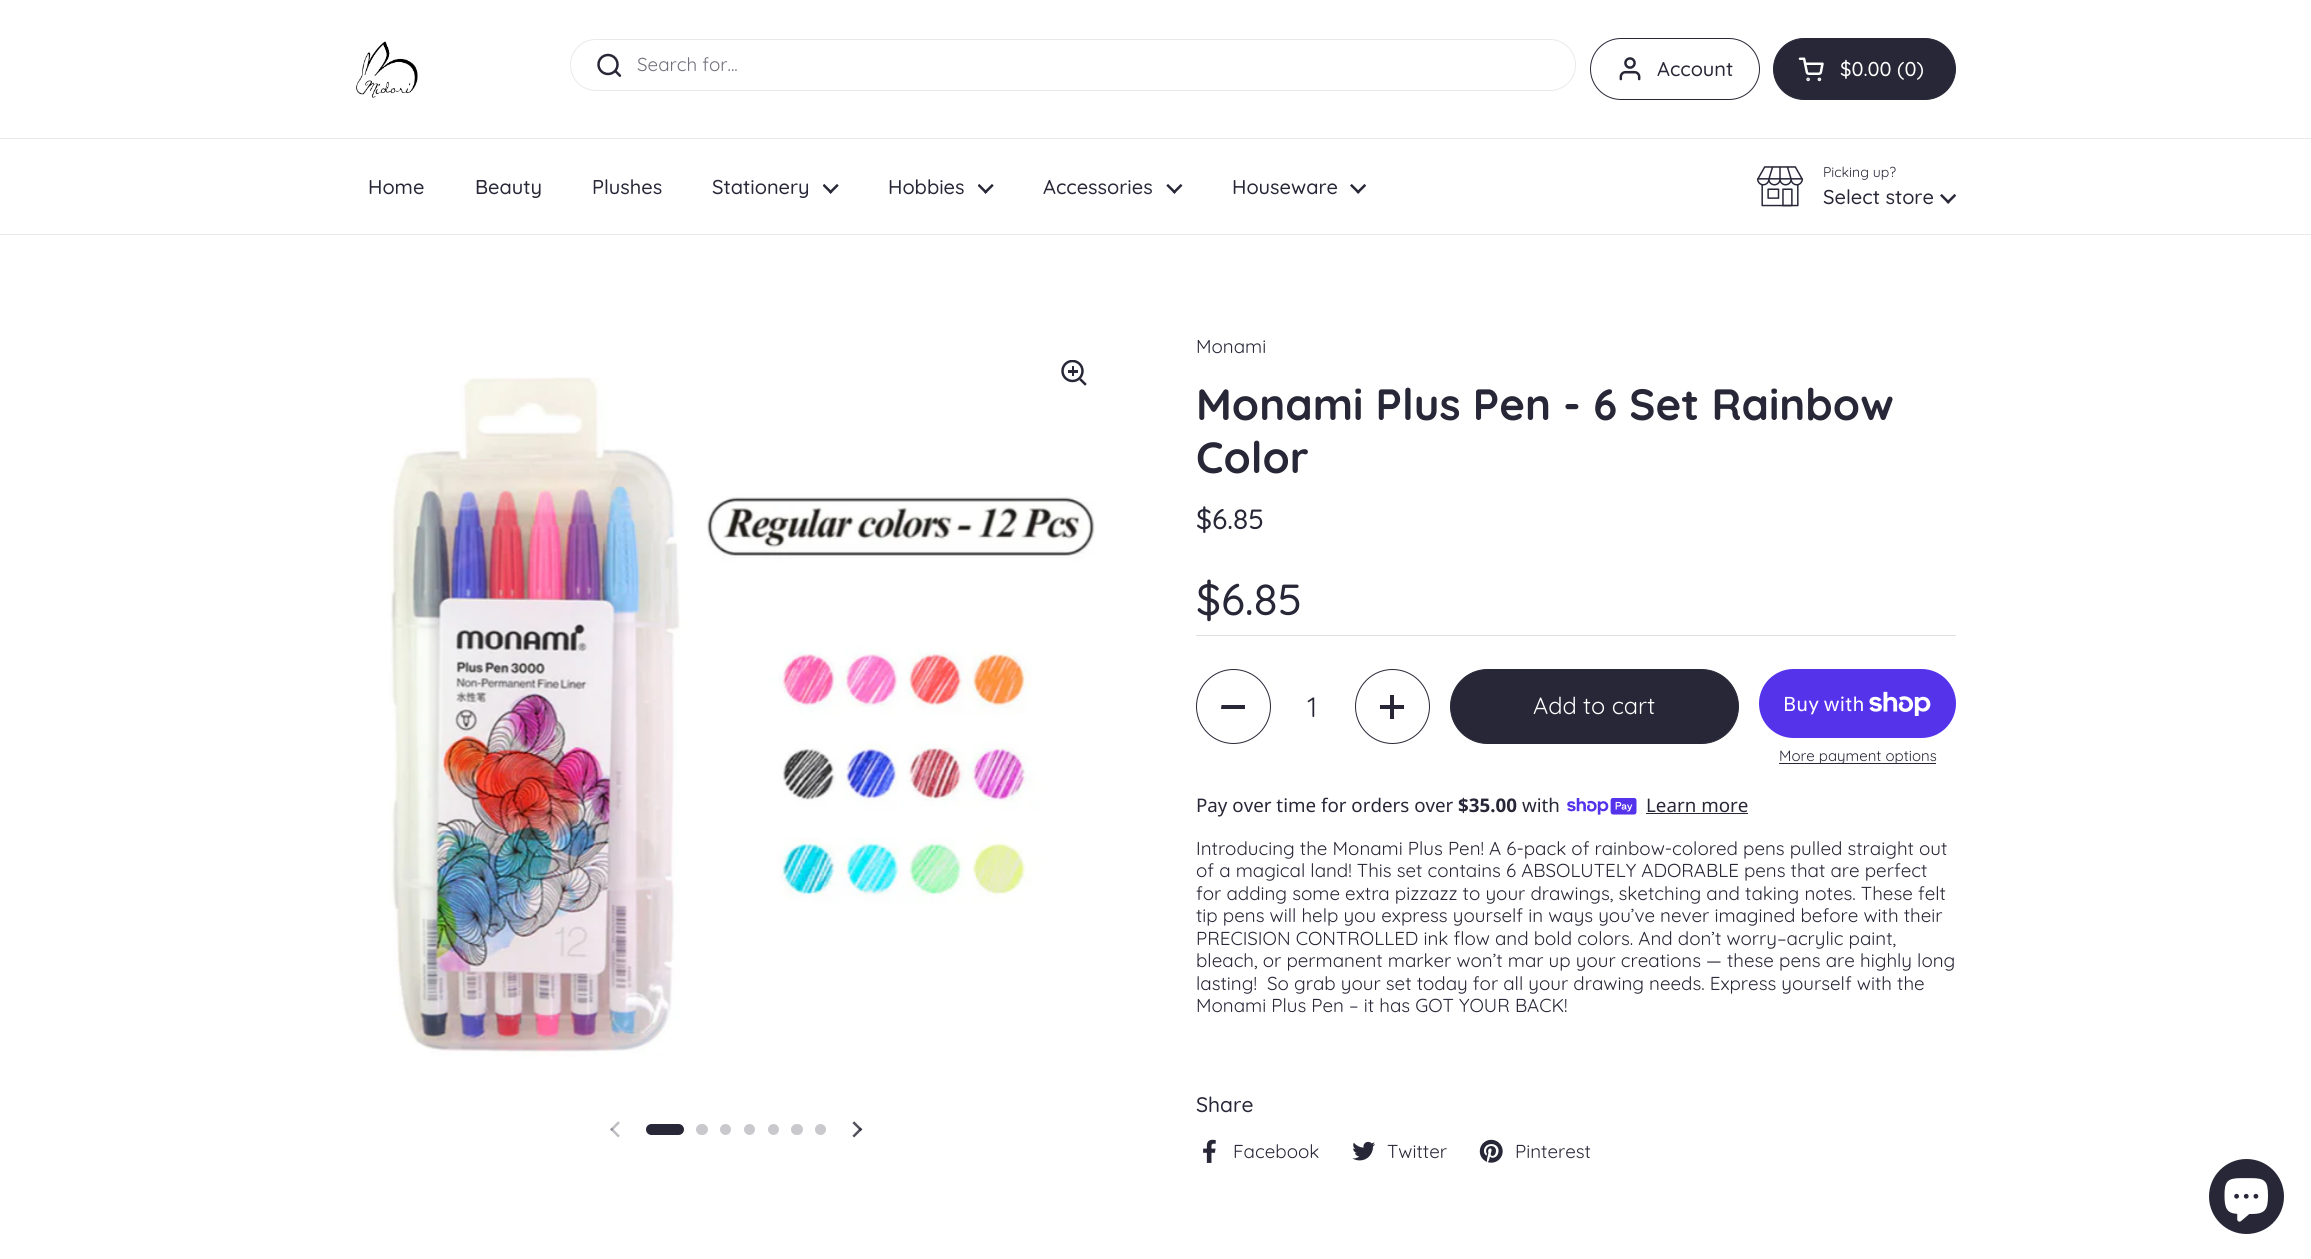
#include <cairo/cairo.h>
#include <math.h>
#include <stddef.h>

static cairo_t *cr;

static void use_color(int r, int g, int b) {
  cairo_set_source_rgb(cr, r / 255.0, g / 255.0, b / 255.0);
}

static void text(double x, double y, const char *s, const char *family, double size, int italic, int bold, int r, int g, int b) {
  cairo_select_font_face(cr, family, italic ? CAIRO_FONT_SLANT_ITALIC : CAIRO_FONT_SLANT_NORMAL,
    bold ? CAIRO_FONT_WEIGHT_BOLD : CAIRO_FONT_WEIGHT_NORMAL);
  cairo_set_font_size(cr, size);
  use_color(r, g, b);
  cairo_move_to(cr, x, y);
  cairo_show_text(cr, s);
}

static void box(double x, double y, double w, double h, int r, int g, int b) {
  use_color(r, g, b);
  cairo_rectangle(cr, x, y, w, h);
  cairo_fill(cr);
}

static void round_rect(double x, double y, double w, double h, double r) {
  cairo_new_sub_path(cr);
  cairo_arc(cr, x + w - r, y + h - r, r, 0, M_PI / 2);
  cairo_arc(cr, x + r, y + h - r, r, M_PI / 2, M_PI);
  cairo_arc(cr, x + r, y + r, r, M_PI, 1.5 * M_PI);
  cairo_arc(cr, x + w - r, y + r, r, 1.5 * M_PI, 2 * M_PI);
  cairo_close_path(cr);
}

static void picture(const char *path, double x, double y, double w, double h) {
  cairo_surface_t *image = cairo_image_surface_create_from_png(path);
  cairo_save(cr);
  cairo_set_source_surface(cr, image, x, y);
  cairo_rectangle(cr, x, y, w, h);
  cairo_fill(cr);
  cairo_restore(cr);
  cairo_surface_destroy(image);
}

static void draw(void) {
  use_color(255, 255, 255);
  cairo_paint(cr);
  box(0, 138, 2311, 1, 233, 233, 235);
  picture("img_01.png", 356, 41, 62, 57);
  round_rect(570.5, 39.5, 1005, 51, 25.5);
  cairo_set_line_width(cr, 1);
  cairo_stroke(cr);
  picture("img_02.png", 597, 53, 25, 24);
  round_rect(1590.5, 38.5, 169, 61, 30.5);
  use_color(39, 39, 55);
  cairo_stroke(cr);
  picture("img_03.png", 1619, 57, 22, 24);
  round_rect(1773.5, 38.5, 182, 61, 30.5);
  cairo_fill_preserve(cr);
  cairo_stroke(cr);
  picture("img_04.png", 1798, 57, 26, 25);
  box(0, 234, 2311, 1, 233, 233, 235);
  picture("img_05.png", 823, 184, 16, 10);
  picture("img_05.png", 978, 184, 16, 10);
  picture("img_06.png", 1166, 184, 17, 10);
  picture("img_07.png", 1350, 184, 16, 10);
  picture("img_08.png", 1757, 166, 46, 41);
  picture("img_07.png", 1940, 194, 16, 10);
  picture("img_10.png", 389, 377, 706, 680);
  picture("img_09.png", 1061, 360, 26, 26);
  picture("img_11.png", 610, 1121, 10, 17);
  use_color(39, 39, 55);
  round_rect(646, 1124, 38, 11, 5.5);
  cairo_fill(cr);
  use_color(201, 201, 205);
  round_rect(696, 1124, 12, 11, 5.5);
  cairo_fill(cr);
  cairo_arc(cr, 725.5, 1129.5, 5.5, 0, 2 * M_PI);
  cairo_fill(cr);
  cairo_arc(cr, 749.5, 1129.5, 5.5, 0, 2 * M_PI);
  cairo_fill(cr);
  cairo_arc(cr, 773.5, 1129.5, 5.5, 0, 2 * M_PI);
  cairo_fill(cr);
  round_rect(791, 1124, 12, 11, 5.5);
  cairo_fill(cr);
  cairo_arc(cr, 820.5, 1129.5, 5.5, 0, 2 * M_PI);
  cairo_fill(cr);
  picture("img_12.png", 852, 1121, 11, 17);
  box(1196, 635, 760, 1, 223, 223, 225);
  cairo_arc(cr, 1233.5, 706.5, 37, 0, 2 * M_PI);
  use_color(39, 39, 55);
  cairo_stroke(cr);
  cairo_new_path(cr);
  cairo_move_to(cr, 1245, 705);
  cairo_line_to(cr, 1245, 709);
  cairo_line_to(cr, 1221, 709);
  cairo_line_to(cr, 1221.5, 705);
  cairo_close_path(cr);
  cairo_fill(cr);
  cairo_arc(cr, 1392.5, 706.5, 37, 0, 2 * M_PI);
  cairo_stroke(cr);
  box(1390, 695, 4, 24, 39, 39, 55);
  box(1380, 705, 24, 4, 39, 39, 55);
  round_rect(1450.5, 669.5, 288, 74, 37);
  cairo_fill_preserve(cr);
  cairo_stroke(cr);
  use_color(84, 51, 235);
  round_rect(1759, 669, 197, 69, 34.5);
  cairo_fill(cr);
  picture("img_13.png", 1869, 691, 62, 25);
  box(1779, 763, 157, 1, 39, 39, 55);
  picture("img_14.png", 1567, 798, 70, 17);
  box(1646, 813, 102, 1, 39, 39, 55);
  picture("img_15.png", 1203, 1139, 13, 24);
  picture("img_16.png", 1352, 1141, 23, 20);
  picture("img_17.png", 1479, 1139, 24, 24);
  cairo_arc(cr, 2246.5, 1196.5, 37.5, 0, 2 * M_PI);
  cairo_fill(cr);
  picture("img_18.png", 2224, 1178, 44, 44);
  text(637, 71, "Search for...", "Quicksand", 18.75, 0, 0, 112, 112, 123);
  text(1657, 76, "Account", "Quicksand Medium", 20, 0, 0, 39, 39, 55);
  text(1840, 76, "$0.00 (0)", "Quicksand Medium", 20, 0, 0, 255, 255, 255);
  text(368, 194, "Home", "Quicksand Medium", 20, 0, 0, 39, 39, 55);
  text(475, 194, "Beauty", "Quicksand Medium", 20, 0, 0, 39, 39, 55);
  text(592, 194, "Plushes", "Quicksand Medium", 20, 0, 0, 39, 39, 55);
  text(712, 194, "Stationery", "Quicksand Medium", 20, 0, 0, 39, 39, 55);
  text(888, 194, "Hobbies", "Quicksand Medium", 20, 0, 0, 39, 39, 55);
  text(1043, 194, "Accessories", "Quicksand Medium", 20, 0, 0, 39, 39, 55);
  text(1232, 194, "Houseware", "Quicksand Medium", 20, 0, 0, 39, 39, 55);
  text(1823, 177, "Picking up?", "Quicksand", 14, 0, 0, 39, 39, 55);
  text(1823, 204, "Select store", "Quicksand Medium", 20, 0, 0, 39, 39, 55);
  text(1196, 353, "Monami", "Quicksand", 18.75, 0, 0, 39, 39, 55);
  text(1196, 420, "Monami Plus Pen - 6 Set Rainbow", "Quicksand", 43.75, 0, 1, 39, 39, 55);
  text(1196, 473, "Color", "Quicksand", 43.75, 0, 1, 39, 39, 55);
  text(1196, 529, "$6.85", "Quicksand Medium", 28, 0, 0, 39, 39, 55);
  text(1196, 615, "$6.85", "Quicksand Medium", 43.75, 0, 0, 39, 39, 55);
  text(1307, 717, "1", "Quicksand", 28, 0, 0, 39, 39, 55);
  text(1533, 714, "Add to cart", "Quicksand", 23.5, 0, 0, 255, 255, 255);
  text(1783, 711, "Buy with", "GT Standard", 20, 0, 0, 255, 255, 255);
  text(1779, 761, "More payment options", "Quicksand", 15, 0, 0, 39, 39, 55);
  text(1196, 812, "Pay over time for orders over", "Noto Sans", 18.75, 0, 0, 39, 39, 55);
  text(1458, 812, "$35.00", "Noto Sans", 18.75, 0, 1, 39, 39, 55);
  text(1522, 812, "with", "Noto Sans", 18.75, 0, 0, 39, 39, 55);
  text(1646, 812, "Learn more", "Noto Sans", 18.75, 0, 0, 39, 39, 55);
  text(1196, 855, "Introducing the Monami Plus Pen! A 6-pack of rainbow-colored pens pulled straight out", "Quicksand", 18.75, 0, 0, 39, 39, 55);
  text(1196, 877, "of a magical land! This set contains 6 ABSOLUTELY ADORABLE pens that are perfect", "Quicksand", 18.75, 0, 0, 39, 39, 55);
  text(1196, 900, "for adding some extra pizzazz to your drawings, sketching and taking notes. These felt", "Quicksand", 18.75, 0, 0, 39, 39, 55);
  text(1196, 922, "tip pens will help you express yourself in ways you’ve never imagined before with their", "Quicksand", 18.75, 0, 0, 39, 39, 55);
  text(1196, 945, "PRECISION CONTROLLED ink flow and bold colors. And don’t worry–acrylic paint,", "Quicksand", 18.75, 0, 0, 39, 39, 55);
  text(1196, 967, "bleach, or permanent marker won’t mar up your creations — these pens are highly long", "Quicksand", 18.75, 0, 0, 39, 39, 55);
  text(1196, 990, "lasting!  So grab your set today for all your drawing needs. Express yourself with the", "Quicksand", 18.75, 0, 0, 39, 39, 55);
  text(1196, 1012, "Monami Plus Pen – it has GOT YOUR BACK!", "Quicksand", 18.75, 0, 0, 39, 39, 55);
  text(1196, 1112, "Share", "Quicksand Medium", 21, 0, 0, 39, 39, 55);
  text(1233, 1158, "Facebook", "Quicksand", 18.75, 0, 0, 39, 39, 55);
  text(1387, 1158, "Twitter", "Quicksand", 18.75, 0, 0, 39, 39, 55);
  text(1515, 1158, "Pinterest", "Quicksand", 18.75, 0, 0, 39, 39, 55);
}

int main(void) {
  cairo_surface_t *surface = cairo_image_surface_create(CAIRO_FORMAT_RGB24, 2311, 1259);
  cr = cairo_create(surface);
  cairo_font_options_t *options = cairo_font_options_create();
  cairo_font_options_set_hint_metrics(options, CAIRO_HINT_METRICS_OFF);
  cairo_font_options_set_hint_style(options, CAIRO_HINT_STYLE_NONE);
  cairo_set_font_options(cr, options);
  cairo_set_miter_limit(cr, 4);
  draw();
  cairo_surface_write_to_png(surface, "out.png");
  cairo_font_options_destroy(options);
  cairo_destroy(cr);
  cairo_surface_destroy(surface);
  return 0;
}
